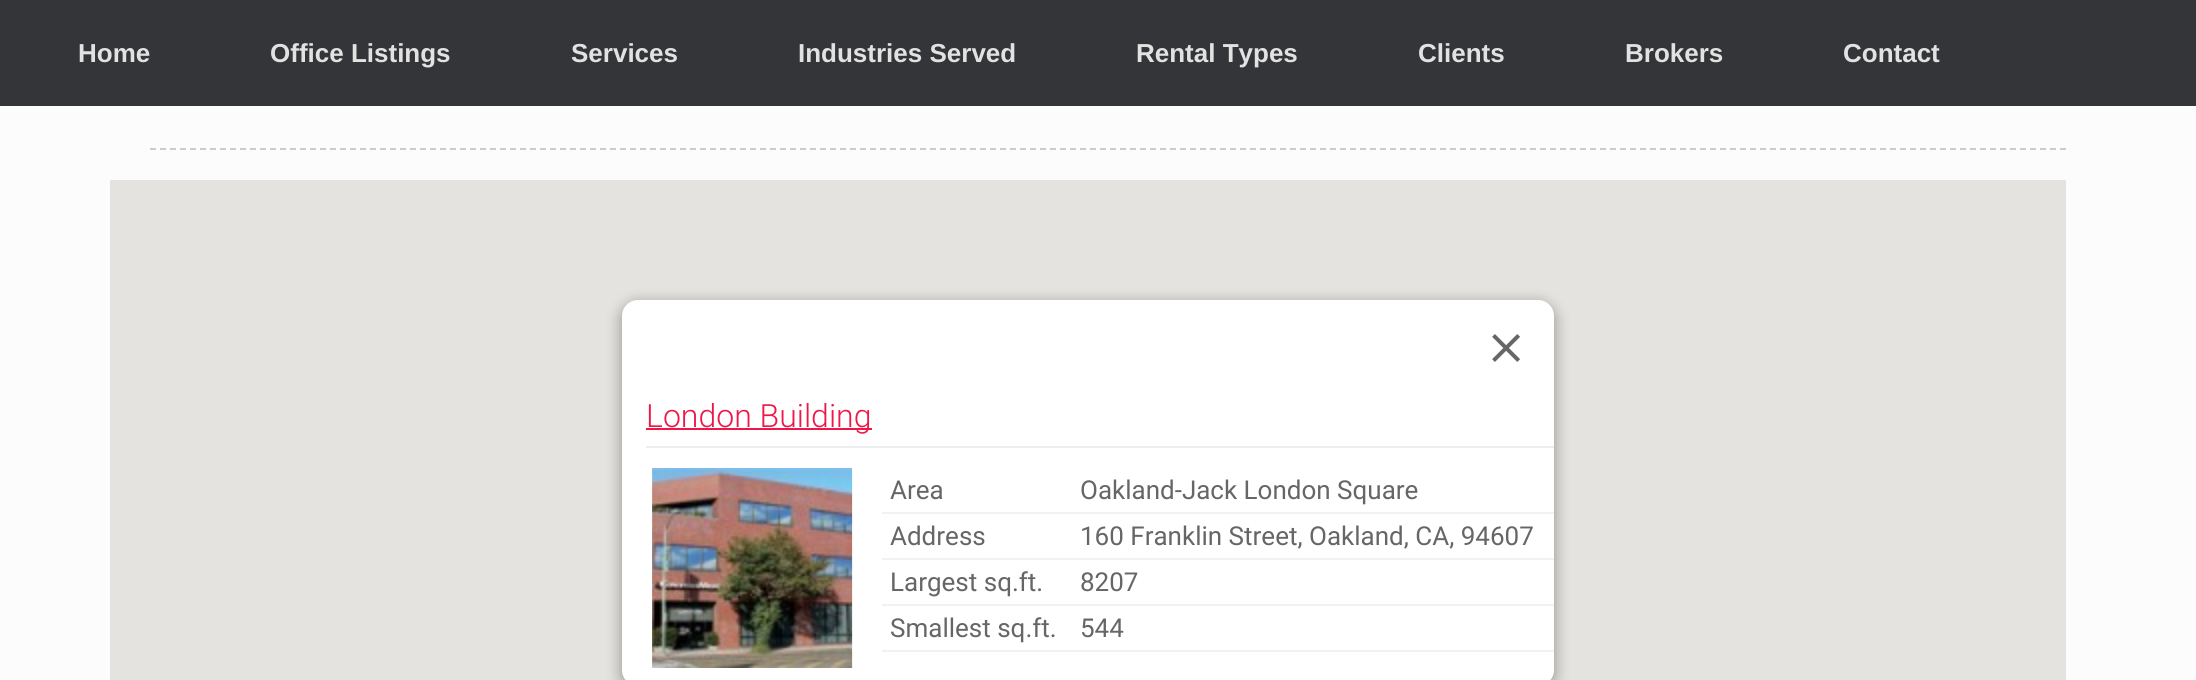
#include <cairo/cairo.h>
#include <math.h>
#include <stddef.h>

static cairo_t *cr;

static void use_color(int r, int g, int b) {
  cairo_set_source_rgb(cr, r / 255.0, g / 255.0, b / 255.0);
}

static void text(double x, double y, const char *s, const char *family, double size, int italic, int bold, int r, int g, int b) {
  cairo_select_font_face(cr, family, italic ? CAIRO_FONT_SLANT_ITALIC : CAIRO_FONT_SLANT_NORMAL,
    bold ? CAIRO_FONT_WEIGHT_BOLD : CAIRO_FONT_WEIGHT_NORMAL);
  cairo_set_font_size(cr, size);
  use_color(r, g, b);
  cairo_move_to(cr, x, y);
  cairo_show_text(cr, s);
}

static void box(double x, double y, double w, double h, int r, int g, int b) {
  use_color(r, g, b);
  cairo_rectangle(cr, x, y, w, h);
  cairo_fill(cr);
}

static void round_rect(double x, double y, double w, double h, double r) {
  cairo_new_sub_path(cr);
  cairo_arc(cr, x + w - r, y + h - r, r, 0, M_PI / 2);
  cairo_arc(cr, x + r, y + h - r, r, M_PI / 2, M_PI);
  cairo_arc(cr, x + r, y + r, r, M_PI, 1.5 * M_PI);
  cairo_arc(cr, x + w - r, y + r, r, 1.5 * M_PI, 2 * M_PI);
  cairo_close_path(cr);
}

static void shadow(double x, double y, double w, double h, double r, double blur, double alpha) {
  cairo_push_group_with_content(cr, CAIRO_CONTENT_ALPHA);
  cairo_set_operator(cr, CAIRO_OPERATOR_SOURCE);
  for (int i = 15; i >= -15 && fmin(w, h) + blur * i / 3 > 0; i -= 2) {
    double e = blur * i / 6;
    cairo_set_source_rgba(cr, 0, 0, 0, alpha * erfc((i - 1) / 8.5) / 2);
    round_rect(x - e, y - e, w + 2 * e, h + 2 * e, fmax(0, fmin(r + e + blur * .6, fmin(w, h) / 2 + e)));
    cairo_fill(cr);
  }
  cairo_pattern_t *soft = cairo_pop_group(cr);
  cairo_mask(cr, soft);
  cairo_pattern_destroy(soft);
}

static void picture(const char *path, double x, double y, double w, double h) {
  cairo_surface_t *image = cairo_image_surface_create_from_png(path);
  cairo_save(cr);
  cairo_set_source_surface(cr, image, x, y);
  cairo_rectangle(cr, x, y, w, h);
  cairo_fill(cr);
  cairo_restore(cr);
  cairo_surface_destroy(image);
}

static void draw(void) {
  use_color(252, 252, 252);
  cairo_paint(cr);
  box(0, 0, 2196, 106, 52, 53, 56);
  cairo_new_path(cr);
  cairo_move_to(cr, 150, 149);
  cairo_line_to(cr, 2066, 149);
  use_color(207, 203, 203);
  cairo_set_dash(cr, (double[]){6, 4}, 2, 0);
  cairo_stroke(cr);
  box(110, 180, 1956, 500, 229, 227, 223);
  use_color(0, 0, 0);
  shadow(620, 302, 936, 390, 18, 7, 0.3);
  use_color(255, 255, 255);
  round_rect(622, 300, 932, 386, 16);
  cairo_fill(cr);
  picture("img_01.png", 1492, 334, 28, 28);
  box(646, 446, 908, 2, 238, 238, 238);
  box(646, 428, 226, 2, 237, 24, 71);
  picture("img_02.png", 652, 468, 201, 200);
  box(882, 512, 672, 2, 241, 241, 241);
  box(882, 558, 672, 2, 241, 241, 241);
  box(882, 604, 672, 2, 241, 241, 241);
  box(882, 650, 672, 2, 241, 241, 241);
  text(78, 62, "Home", "Liberation Sans", 26, 0, 1, 226, 226, 226);
  text(270, 62, "Office Listings", "Liberation Sans", 26, 0, 1, 226, 226, 226);
  text(571, 62, "Services", "Liberation Sans", 26, 0, 1, 226, 226, 226);
  text(798, 62, "Industries Served", "Liberation Sans", 26, 0, 1, 226, 226, 226);
  text(1136, 62, "Rental Types", "Liberation Sans", 26, 0, 1, 226, 226, 226);
  text(1418, 62, "Clients", "Liberation Sans", 26, 0, 1, 226, 226, 226);
  text(1625, 62, "Brokers", "Liberation Sans", 26, 0, 1, 226, 226, 226);
  text(1843, 62, "Contact", "Liberation Sans", 26, 0, 1, 226, 226, 226);
  text(646, 427, "London Building", "Roboto Light", 32, 0, 0, 237, 24, 71);
  text(890, 499, "Area", "Roboto", 26, 0, 0, 102, 102, 102);
  text(1080, 499, "Oakland-Jack London Square", "Roboto", 26, 0, 0, 102, 102, 102);
  text(890, 545, "Address", "Roboto", 26, 0, 0, 102, 102, 102);
  text(1080, 545, "160 Franklin Street, Oakland, CA, 94607", "Roboto", 26, 0, 0, 102, 102, 102);
  text(890, 591, "Largest sq.ft.", "Roboto", 26, 0, 0, 102, 102, 102);
  text(1080, 591, "8207", "Roboto", 26, 0, 0, 102, 102, 102);
  text(890, 637, "Smallest sq.ft.", "Roboto", 26, 0, 0, 102, 102, 102);
  text(1080, 637, "544", "Roboto", 26, 0, 0, 102, 102, 102);
}

int main(void) {
  cairo_surface_t *surface = cairo_image_surface_create(CAIRO_FORMAT_RGB24, 2196, 680);
  cr = cairo_create(surface);
  cairo_font_options_t *options = cairo_font_options_create();
  cairo_font_options_set_hint_metrics(options, CAIRO_HINT_METRICS_OFF);
  cairo_font_options_set_hint_style(options, CAIRO_HINT_STYLE_NONE);
  cairo_set_font_options(cr, options);
  cairo_set_miter_limit(cr, 4);
  draw();
  cairo_surface_write_to_png(surface, "out.png");
  cairo_font_options_destroy(options);
  cairo_destroy(cr);
  cairo_surface_destroy(surface);
  return 0;
}
